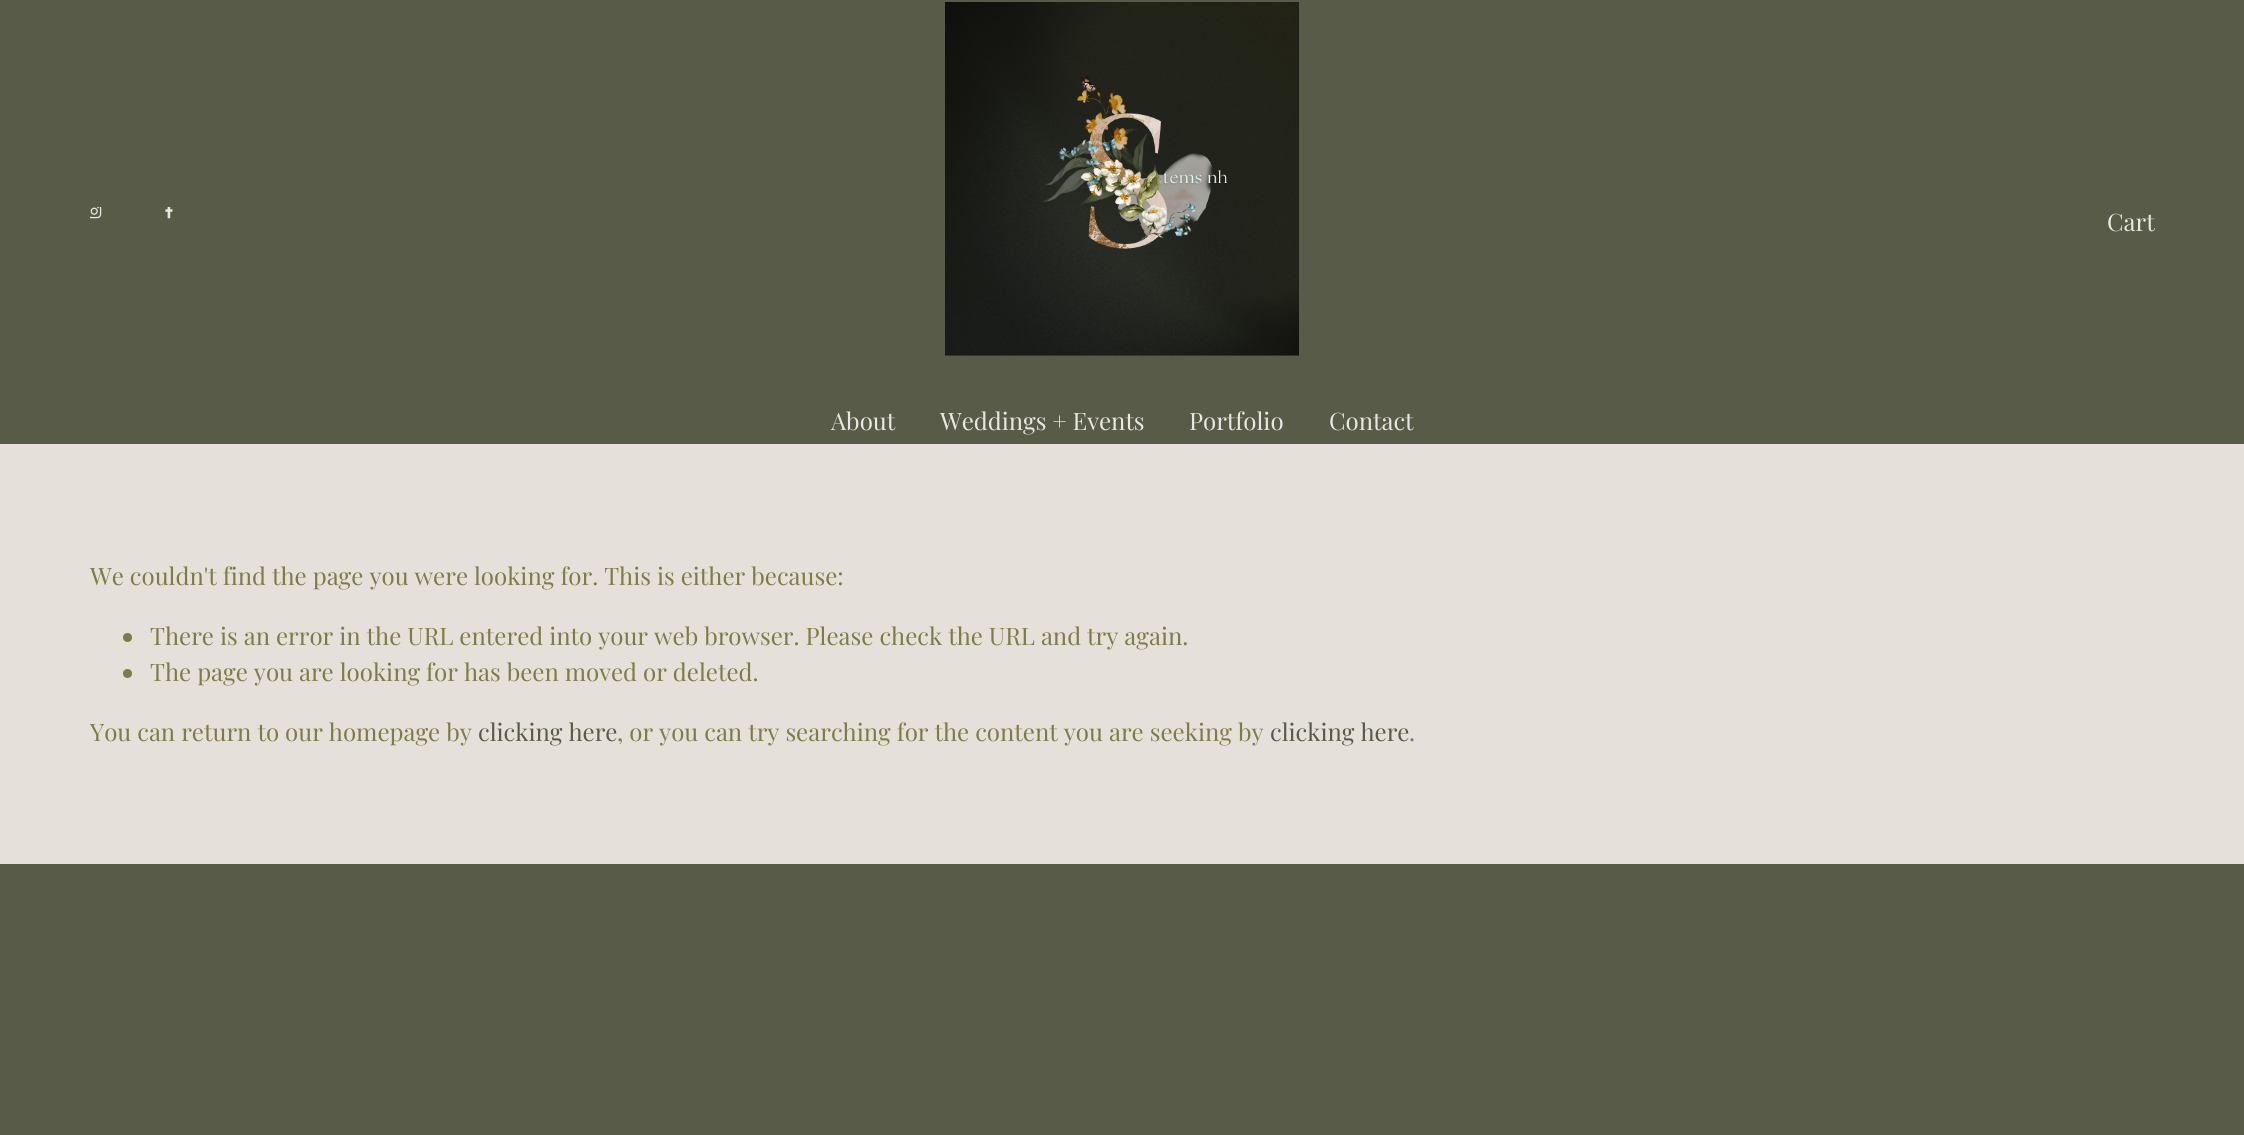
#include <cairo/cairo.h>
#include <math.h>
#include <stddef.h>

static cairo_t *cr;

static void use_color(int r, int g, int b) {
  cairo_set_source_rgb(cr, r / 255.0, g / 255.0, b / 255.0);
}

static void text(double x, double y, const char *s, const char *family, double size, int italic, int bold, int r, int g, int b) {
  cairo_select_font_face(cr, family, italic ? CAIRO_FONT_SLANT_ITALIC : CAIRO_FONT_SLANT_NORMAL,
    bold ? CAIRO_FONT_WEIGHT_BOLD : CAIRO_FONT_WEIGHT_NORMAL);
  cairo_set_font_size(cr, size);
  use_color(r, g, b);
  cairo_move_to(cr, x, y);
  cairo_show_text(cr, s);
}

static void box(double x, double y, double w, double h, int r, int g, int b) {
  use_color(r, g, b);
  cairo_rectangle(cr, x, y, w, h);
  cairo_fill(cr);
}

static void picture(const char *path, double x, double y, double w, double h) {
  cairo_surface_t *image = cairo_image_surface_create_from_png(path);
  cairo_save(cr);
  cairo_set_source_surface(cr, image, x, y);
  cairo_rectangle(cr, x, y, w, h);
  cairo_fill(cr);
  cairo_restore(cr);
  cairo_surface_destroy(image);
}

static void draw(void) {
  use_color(229, 224, 218);
  cairo_paint(cr);
  box(0, 0, 2244, 444, 89, 91, 73);
  picture("img_01.png", 90, 207, 12, 12);
  picture("img_02.png", 165, 207, 8, 12);
  picture("img_03.png", 945, 2, 354, 354);
  use_color(126, 123, 70);
  cairo_arc(cr, 127.5, 637.5, 4.5, 0, 2 * M_PI);
  cairo_fill(cr);
  cairo_arc(cr, 127.5, 673.5, 4.5, 0, 2 * M_PI);
  cairo_fill(cr);
  box(0, 864, 2244, 271, 89, 91, 73);
  text(2107, 231, "Cart", "Playfair Display", 24, 0, 0, 234, 230, 225);
  text(831, 430, "About", "Playfair Display", 24, 0, 0, 234, 230, 225);
  text(940, 430, "Weddings + Events", "Playfair Display", 24, 0, 0, 234, 230, 225);
  text(1189, 430, "Portfolio", "Playfair Display", 24, 0, 0, 234, 230, 225);
  text(1329, 430, "Contact", "Playfair Display", 24, 0, 0, 234, 230, 225);
  text(90, 585, "We couldn't find the page you were looking for. This is either because:", "Playfair Display", 24, 0, 0, 126, 123, 70);
  text(150, 645, "There is an error in the URL entered into your web browser. Please check the URL and try again.", "Playfair Display", 24, 0, 0, 126, 123, 70);
  text(150, 681, "The page you are looking for has been moved or deleted.", "Playfair Display", 24, 0, 0, 126, 123, 70);
  text(90, 741, "You can return to our homepage by", "Playfair Display", 24, 0, 0, 126, 123, 70);
  text(478, 741, "clicking here", "Playfair Display", 24, 0, 0, 89, 91, 73);
  text(617, 741, ", or you can try searching for the content you are seeking by", "Playfair Display", 24, 0, 0, 126, 123, 70);
  text(1270, 741, "clicking here", "Playfair Display", 24, 0, 0, 89, 91, 73);
  text(1409, 741, ".", "Playfair Display", 24, 0, 0, 126, 123, 70);
}

int main(void) {
  cairo_surface_t *surface = cairo_image_surface_create(CAIRO_FORMAT_RGB24, 2244, 1135);
  cr = cairo_create(surface);
  cairo_font_options_t *options = cairo_font_options_create();
  cairo_font_options_set_hint_metrics(options, CAIRO_HINT_METRICS_OFF);
  cairo_font_options_set_hint_style(options, CAIRO_HINT_STYLE_NONE);
  cairo_set_font_options(cr, options);
  cairo_set_miter_limit(cr, 4);
  draw();
  cairo_surface_write_to_png(surface, "out.png");
  cairo_font_options_destroy(options);
  cairo_destroy(cr);
  cairo_surface_destroy(surface);
  return 0;
}
